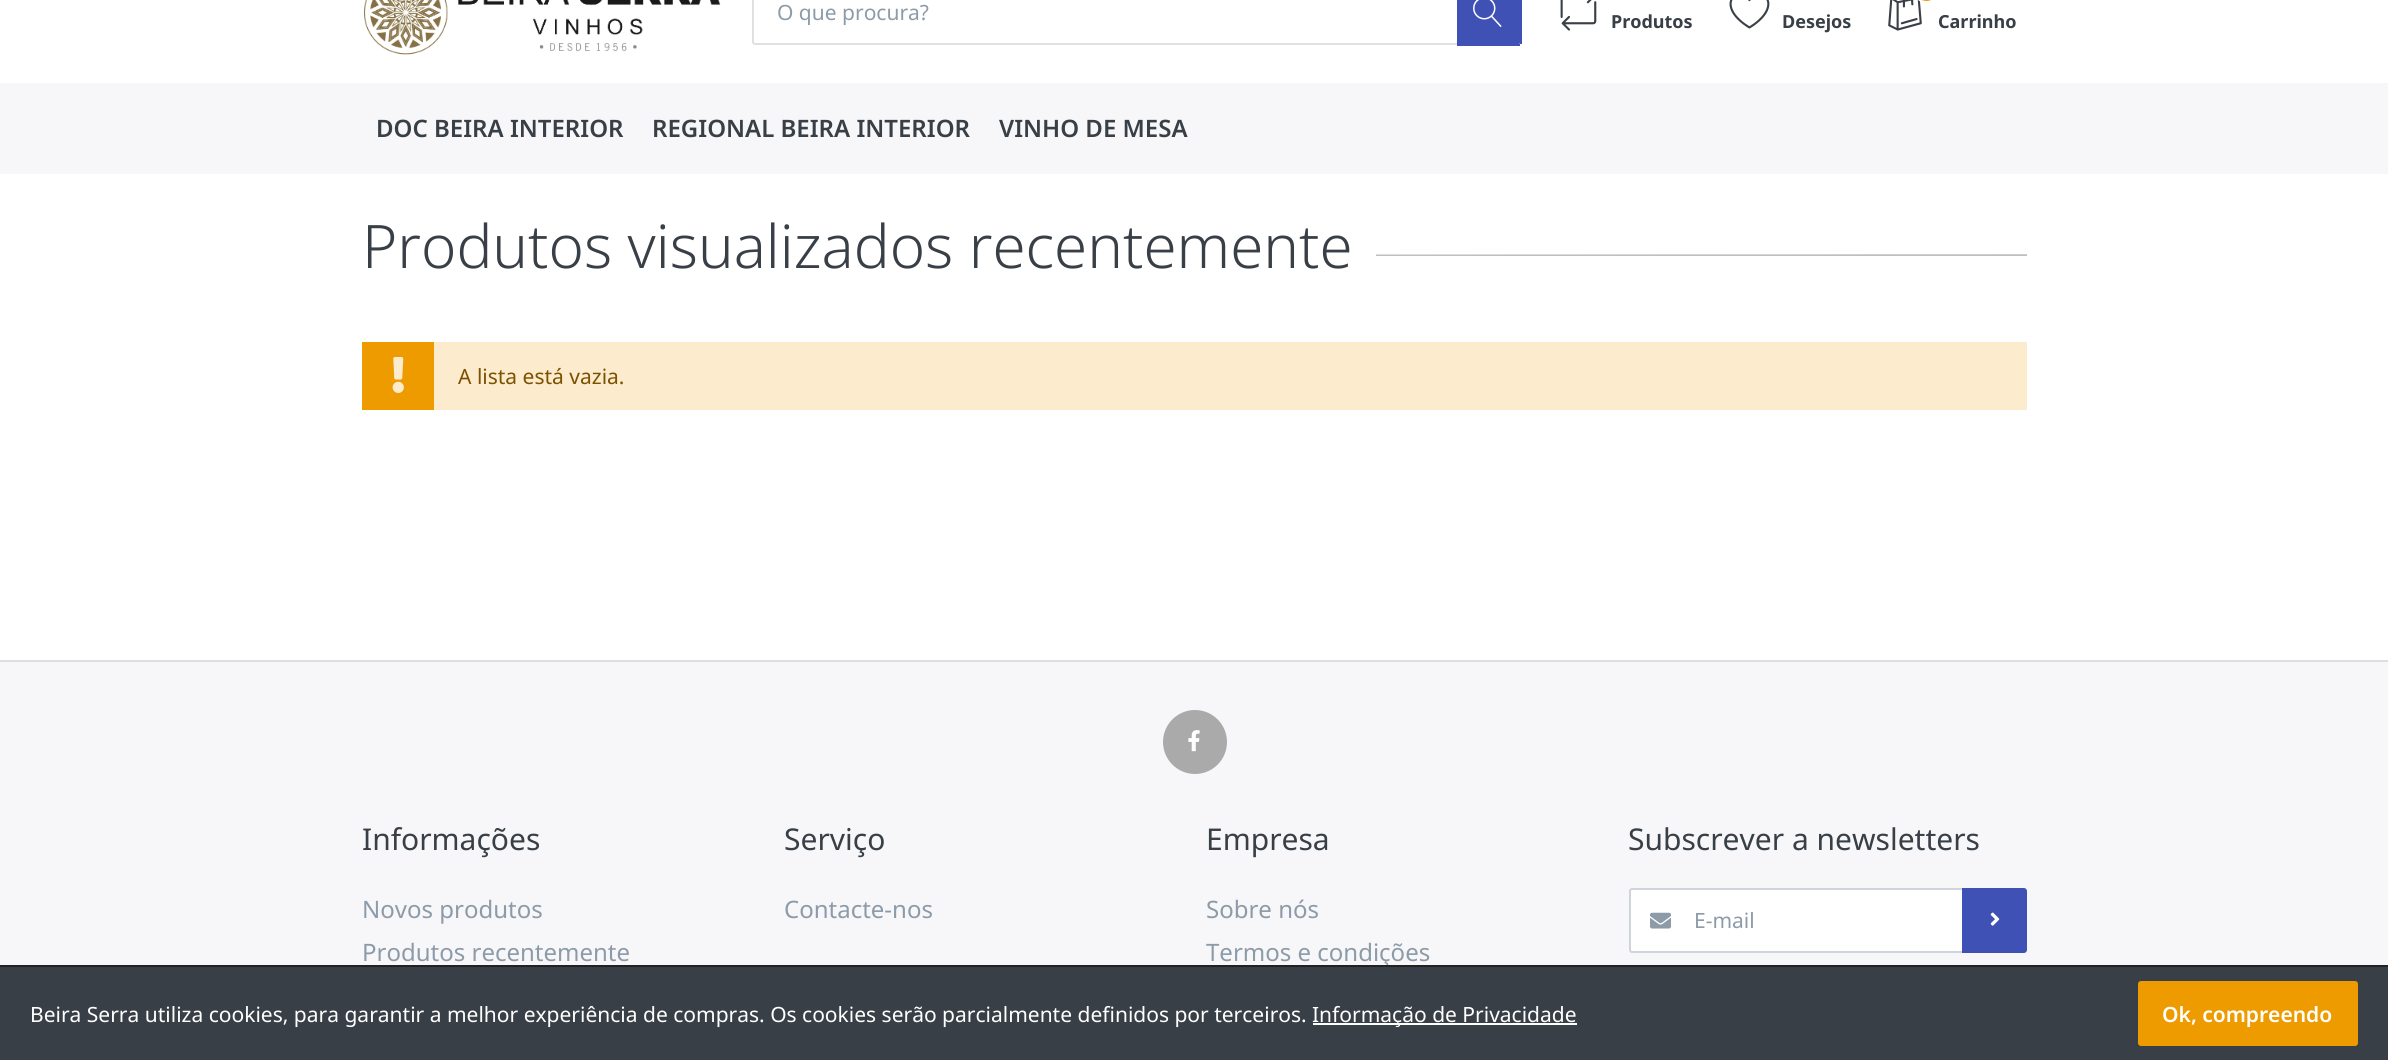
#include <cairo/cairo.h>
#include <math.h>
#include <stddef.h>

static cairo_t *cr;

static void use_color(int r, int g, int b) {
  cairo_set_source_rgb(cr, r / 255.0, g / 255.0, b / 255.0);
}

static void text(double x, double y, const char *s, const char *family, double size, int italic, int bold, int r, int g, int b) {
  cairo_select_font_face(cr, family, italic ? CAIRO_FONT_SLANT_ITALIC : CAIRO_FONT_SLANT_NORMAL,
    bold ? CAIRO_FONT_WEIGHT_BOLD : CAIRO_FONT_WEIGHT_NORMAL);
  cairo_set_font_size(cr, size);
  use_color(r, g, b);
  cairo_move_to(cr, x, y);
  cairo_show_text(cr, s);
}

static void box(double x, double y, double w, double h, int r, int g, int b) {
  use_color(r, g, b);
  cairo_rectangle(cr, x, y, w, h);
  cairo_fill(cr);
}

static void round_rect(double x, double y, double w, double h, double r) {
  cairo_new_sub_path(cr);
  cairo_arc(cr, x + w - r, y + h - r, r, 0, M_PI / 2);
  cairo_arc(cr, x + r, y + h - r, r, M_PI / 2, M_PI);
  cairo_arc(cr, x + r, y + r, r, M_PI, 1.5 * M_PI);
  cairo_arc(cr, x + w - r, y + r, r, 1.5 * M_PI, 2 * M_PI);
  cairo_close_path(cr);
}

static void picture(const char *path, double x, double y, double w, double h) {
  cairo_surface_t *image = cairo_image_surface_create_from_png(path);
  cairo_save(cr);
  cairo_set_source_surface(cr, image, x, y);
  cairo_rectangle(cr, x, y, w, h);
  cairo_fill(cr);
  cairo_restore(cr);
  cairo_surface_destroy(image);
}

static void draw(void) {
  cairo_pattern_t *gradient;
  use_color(255, 255, 255);
  cairo_paint(cr);
  picture("img_01.png", 363, 0, 358, 55);
  round_rect(753, -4, 767, 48, 2);
  use_color(224, 224, 224);
  cairo_stroke(cr);
  use_color(63, 81, 181);
  cairo_new_path(cr);
  cairo_move_to(cr, 1457, -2);
  cairo_line_to(cr, 1518.5, -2);
  cairo_curve_to(cr, 1519.5, -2, 1520, -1.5, 1520, -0.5);
  cairo_line_to(cr, 1520, 42.5);
  cairo_curve_to(cr, 1520, 43.5, 1519.5, 44, 1518.5, 44);
  cairo_line_to(cr, 1457, 44);
  cairo_close_path(cr);
  cairo_fill(cr);
  box(1520, 0, 2, 44, 63, 81, 181);
  box(1457, 44, 63, 2, 63, 81, 181);
  picture("img_02.png", 1473, 0, 29, 27);
  picture("img_03.png", 1560, 0, 37, 31);
  picture("img_04.png", 1729, 0, 41, 29);
  picture("img_05.png", 1888, 0, 34, 31);
  use_color(238, 155, 0);
  round_rect(1914, -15, 25, 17, 12.5);
  cairo_fill_preserve(cr);
  use_color(255, 255, 255);
  cairo_stroke(cr);
  box(0, 83, 2388, 91, 247, 247, 249);
  gradient = cairo_pattern_create_radial(0, 0, 0, 0, 0, 1);
  cairo_pattern_set_matrix(gradient, &(cairo_matrix_t){1.0 / 2355, 0, 0, 1.0 / 1.1, -1.0 * 362 / 2355, -1.0 * 254 / 1.1});
  cairo_pattern_add_color_stop_rgba(gradient, 0.25, 1, 1, 1, 1);
  cairo_pattern_add_color_stop_rgba(gradient, 1, 0.749, 0.749, 0.749, 1);
  cairo_set_source(cr, gradient);
  cairo_pattern_destroy(gradient);
  cairo_rectangle(cr, 1376, 254, 651, 2);
  cairo_fill(cr);
  box(434, 342, 1593, 68, 252, 235, 204);
  box(362, 342, 72, 68, 238, 155, 0);
  picture("img_06.png", 392, 357, 12, 36);
  box(0, 662, 2388, 303, 247, 247, 249);
  box(0, 660, 2388, 2, 222, 222, 224);
  use_color(170, 170, 170);
  cairo_arc(cr, 1195, 742, 32, 0, 2 * M_PI);
  cairo_fill(cr);
  picture("img_07.png", 1188, 730, 12, 22);
  use_color(255, 255, 255);
  cairo_new_path(cr);
  cairo_move_to(cr, 1632, 889);
  cairo_line_to(cr, 1963, 889);
  cairo_line_to(cr, 1963, 952);
  cairo_line_to(cr, 1632, 952);
  cairo_curve_to(cr, 1631, 952, 1630, 951, 1630, 950);
  cairo_line_to(cr, 1630, 891);
  cairo_curve_to(cr, 1630, 890, 1631, 889, 1632, 889);
  cairo_close_path(cr);
  cairo_fill_preserve(cr);
  use_color(206, 212, 218);
  cairo_stroke(cr);
  picture("img_08.png", 1650, 912, 21, 17);
  use_color(63, 81, 181);
  cairo_new_path(cr);
  cairo_move_to(cr, 1963, 889);
  cairo_line_to(cr, 2024, 889);
  cairo_curve_to(cr, 2025, 889, 2026, 890, 2026, 891);
  cairo_line_to(cr, 2026, 950);
  cairo_curve_to(cr, 2026, 951, 2025, 952, 2024, 952);
  cairo_line_to(cr, 1963, 952);
  cairo_close_path(cr);
  cairo_fill_preserve(cr);
  cairo_stroke(cr);
  picture("img_09.png", 1990, 912, 10, 14);
  box(0, 967, 2388, 93, 57, 63, 70);
  box(1313, 1023, 264, 2, 255, 255, 255);
  use_color(238, 155, 0);
  round_rect(2139, 982, 218, 63, 2);
  cairo_fill_preserve(cr);
  cairo_stroke(cr);
  text(777, 20, "O que procura?", "Noto Sans", 21, 0, 0, 141, 155, 169);
  text(1611, 28, "Produtos", "Noto Sans", 18, 0, 1, 57, 63, 70);
  text(1782, 28, "Desejos", "Noto Sans", 18, 0, 1, 57, 63, 70);
  text(1938, 28, "Carrinho", "Noto Sans", 18, 0, 1, 57, 63, 70);
  text(376, 137, "DOC BEIRA INTERIOR", "Noto Sans SemiBold", 24, 0, 0, 57, 63, 70);
  text(652, 137, "REGIONAL BEIRA INTERIOR", "Noto Sans SemiBold", 24, 0, 0, 57, 63, 70);
  text(999, 137, "VINHO DE MESA", "Noto Sans SemiBold", 24, 0, 0, 57, 63, 70);
  text(362, 268, "Produtos visualizados recentemente", "Noto Sans Light", 60, 0, 0, 57, 63, 70);
  text(458, 384, "A lista está vazia.", "Noto Sans", 21, 0, 0, 124, 81, 0);
  text(362, 850, "Informações", "Noto Sans", 30, 0, 0, 57, 63, 70);
  text(362, 918, "Novos produtos", "Noto Sans", 24, 0, 0, 141, 155, 169);
  text(362, 961, "Produtos recentemente", "Noto Sans", 24, 0, 0, 141, 155, 169);
  text(784, 850, "Serviço", "Noto Sans", 30, 0, 0, 57, 63, 70);
  text(784, 918, "Contacte-nos", "Noto Sans", 24, 0, 0, 141, 155, 169);
  text(1206, 850, "Empresa", "Noto Sans", 30, 0, 0, 57, 63, 70);
  text(1206, 918, "Sobre nós", "Noto Sans", 24, 0, 0, 141, 155, 169);
  text(1206, 961, "Termos e condições", "Noto Sans", 24, 0, 0, 141, 155, 169);
  text(1628, 850, "Subscrever a newsletters", "Noto Sans", 30, 0, 0, 57, 63, 70);
  text(1694, 928, "E-mail", "Noto Sans", 21, 0, 0, 141, 155, 169);
  box(0, 965, 2388, 2, 34, 34, 34);
  text(30, 1022, "Beira Serra utiliza cookies, para garantir a melhor experiência de compras. Os cookies serão parcialmente definidos por terceiros.", "Noto Sans", 21, 0, 0, 255, 255, 255);
  text(1312, 1022, "Informação de Privacidade", "Noto Sans", 21, 0, 0, 255, 255, 255);
  text(2162, 1022, "Ok, compreendo", "Noto Sans SemiBold", 21, 0, 0, 255, 255, 255);
}

int main(void) {
  cairo_surface_t *surface = cairo_image_surface_create(CAIRO_FORMAT_RGB24, 2388, 1060);
  cr = cairo_create(surface);
  cairo_font_options_t *options = cairo_font_options_create();
  cairo_font_options_set_hint_metrics(options, CAIRO_HINT_METRICS_OFF);
  cairo_font_options_set_hint_style(options, CAIRO_HINT_STYLE_NONE);
  cairo_set_font_options(cr, options);
  cairo_set_miter_limit(cr, 4);
  draw();
  cairo_surface_write_to_png(surface, "out.png");
  cairo_font_options_destroy(options);
  cairo_destroy(cr);
  cairo_surface_destroy(surface);
  return 0;
}
